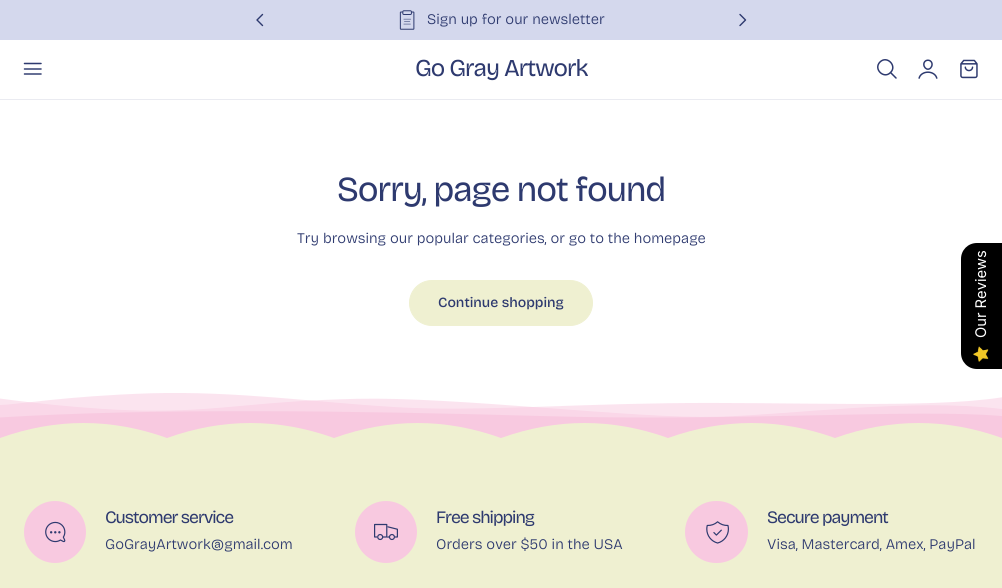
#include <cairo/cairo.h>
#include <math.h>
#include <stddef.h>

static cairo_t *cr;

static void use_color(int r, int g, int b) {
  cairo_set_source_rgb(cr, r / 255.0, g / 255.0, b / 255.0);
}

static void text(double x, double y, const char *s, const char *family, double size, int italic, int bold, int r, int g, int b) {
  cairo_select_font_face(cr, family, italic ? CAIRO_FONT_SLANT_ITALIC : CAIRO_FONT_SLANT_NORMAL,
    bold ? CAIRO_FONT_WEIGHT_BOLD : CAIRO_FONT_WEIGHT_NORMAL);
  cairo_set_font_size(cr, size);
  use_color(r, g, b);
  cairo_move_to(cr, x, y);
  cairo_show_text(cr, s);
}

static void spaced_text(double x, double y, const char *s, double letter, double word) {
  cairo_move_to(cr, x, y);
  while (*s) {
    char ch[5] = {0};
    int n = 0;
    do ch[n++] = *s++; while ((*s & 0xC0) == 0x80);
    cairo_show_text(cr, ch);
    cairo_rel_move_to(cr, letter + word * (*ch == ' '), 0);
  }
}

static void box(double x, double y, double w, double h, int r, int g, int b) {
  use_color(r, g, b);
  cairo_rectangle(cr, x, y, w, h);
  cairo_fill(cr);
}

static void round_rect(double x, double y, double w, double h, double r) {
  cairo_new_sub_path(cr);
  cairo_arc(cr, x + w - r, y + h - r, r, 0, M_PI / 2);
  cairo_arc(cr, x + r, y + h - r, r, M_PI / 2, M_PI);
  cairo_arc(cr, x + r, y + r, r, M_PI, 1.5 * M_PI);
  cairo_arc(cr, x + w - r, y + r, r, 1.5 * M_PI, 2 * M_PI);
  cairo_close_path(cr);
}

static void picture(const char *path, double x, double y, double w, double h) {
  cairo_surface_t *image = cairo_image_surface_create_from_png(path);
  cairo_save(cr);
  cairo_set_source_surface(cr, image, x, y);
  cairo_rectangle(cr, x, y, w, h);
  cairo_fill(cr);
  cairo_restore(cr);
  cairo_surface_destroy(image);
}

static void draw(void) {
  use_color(255, 255, 255);
  cairo_paint(cr);
  box(0, 0, 1002, 40, 212, 216, 237);
  cairo_new_path(cr);
  cairo_move_to(cr, 262.5, 14.5);
  cairo_line_to(cr, 257, 20);
  cairo_line_to(cr, 262.5, 25.5);
  use_color(46, 58, 111);
  cairo_set_line_width(cr, 1.4);
  cairo_set_line_cap(cr, CAIRO_LINE_CAP_ROUND);
  cairo_set_line_join(cr, CAIRO_LINE_JOIN_ROUND);
  cairo_stroke(cr);
  cairo_new_path(cr);
  cairo_move_to(cr, 740, 14.5);
  cairo_line_to(cr, 745.5, 20);
  cairo_line_to(cr, 740, 25.5);
  cairo_stroke(cr);
  picture("img_01.png", 399, 10, 16, 20);
  box(0, 99, 1002, 1, 234, 235, 241);
  cairo_new_path(cr);
  cairo_move_to(cr, 24.5, 63.5);
  cairo_line_to(cr, 41, 63.5);
  cairo_move_to(cr, 24.5, 69);
  cairo_line_to(cr, 41, 69);
  cairo_move_to(cr, 24.5, 74);
  cairo_line_to(cr, 41, 74);
  use_color(46, 58, 111);
  cairo_set_line_width(cr, 1.5);
  cairo_stroke(cr);
  cairo_new_path(cr);
  cairo_move_to(cr, 896, 78);
  cairo_line_to(cr, 890.5, 72.5);
  cairo_move_to(cr, 890.5, 72.5);
  cairo_curve_to(cr, 897.5, 66, 887, 55, 880, 62);
  cairo_curve_to(cr, 873, 69, 884, 79.5, 890.5, 72.5);
  cairo_close_path(cr);
  cairo_stroke(cr);
  picture("img_02.png", 918, 59, 20, 20);
  picture("img_03.png", 960, 59, 18, 20);
  use_color(239, 240, 209);
  round_rect(409.5, 280.5, 183, 45, 22.5);
  cairo_fill_preserve(cr);
  cairo_set_line_width(cr, 1);
  cairo_set_line_cap(cr, CAIRO_LINE_CAP_BUTT);
  cairo_set_line_join(cr, CAIRO_LINE_JOIN_MITER);
  cairo_stroke(cr);
  use_color(0, 0, 0);
  cairo_new_path(cr);
  cairo_move_to(cr, 961, 353);
  cairo_line_to(cr, 961, 259);
  cairo_curve_to(cr, 961, 250, 968, 243, 977, 243);
  cairo_line_to(cr, 1002, 243);
  cairo_line_to(cr, 1002, 369);
  cairo_line_to(cr, 977, 369);
  cairo_curve_to(cr, 968, 369, 961, 362, 961, 353);
  cairo_close_path(cr);
  cairo_fill(cr);
  picture("img_04.png", 973, 346, 16, 16);
  picture("img_05.png", 0, 393, 1002, 30);
  box(0, 423, 1002, 15, 248, 201, 224);
  use_color(239, 240, 209);
  cairo_new_path(cr);
  cairo_move_to(cr, 0, 438);
  cairo_curve_to(cr, 56, 418, 111, 418, 167, 438);
  cairo_curve_to(cr, 223, 418, 278, 418, 334, 438);
  cairo_curve_to(cr, 390, 418, 445, 418, 501, 438);
  cairo_curve_to(cr, 557, 418, 612, 418, 668, 438);
  cairo_curve_to(cr, 724, 418, 779, 418, 835, 438);
  cairo_curve_to(cr, 891, 418, 946, 418, 1002, 438);
  cairo_curve_to(cr, 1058, 418, 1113, 418, 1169, 438);
  cairo_line_to(cr, 1002, 453);
  cairo_line_to(cr, 0, 453);
  cairo_close_path(cr);
  cairo_fill(cr);
  box(0, 453, 1002, 135, 239, 240, 209);
  use_color(248, 201, 224);
  cairo_arc(cr, 55, 532, 31, 0, 2 * M_PI);
  cairo_fill(cr);
  picture("img_06.png", 45, 521, 21, 22);
  cairo_arc(cr, 386, 532, 31, 0, 2 * M_PI);
  cairo_fill(cr);
  picture("img_07.png", 374, 523, 24, 18);
  round_rect(685, 501, 63, 62, 31);
  cairo_fill(cr);
  picture("img_08.png", 706, 521, 23, 23);
  text(427, 24, "Sign up for our newsletter", "Bricolage Grotesque Light", 14.7, 0, 0, 46, 58, 111);
  cairo_select_font_face(cr, "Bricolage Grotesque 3", CAIRO_FONT_SLANT_NORMAL, CAIRO_FONT_WEIGHT_NORMAL);
  cairo_set_font_size(cr, 24.25);
  spaced_text(415, 76, "Go Gray Artwork", -1, 0);
  cairo_select_font_face(cr, "Bricolage Grotesque", CAIRO_FONT_SLANT_NORMAL, CAIRO_FONT_WEIGHT_NORMAL);
  cairo_set_font_size(cr, 35.25);
  spaced_text(337, 201, "Sorry, page not found", -1, 0);
  text(297, 243, "Try browsing our popular categories, or go to the homepage", "Bricolage Grotesque Light", 14.7, 0, 0, 46, 58, 111);
  text(438, 307, "Continue shopping", "Bricolage Grotesque Medium", 14, 0, 0, 46, 58, 111);
  cairo_save(cr);
  cairo_translate(cr, 986, 338);
  cairo_rotate(cr, -90 * M_PI / 180);
  text(0, 0, "Our Reviews", "Inter", 14.7, 0, 0, 255, 255, 255);
  cairo_restore(cr);
  cairo_select_font_face(cr, "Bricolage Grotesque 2", CAIRO_FONT_SLANT_NORMAL, CAIRO_FONT_WEIGHT_NORMAL);
  cairo_set_font_size(cr, 17.5);
  use_color(46, 58, 111);
  spaced_text(105, 523, "Customer service", -1, 0);
  text(105, 549, "GoGrayArtwork@gmail.com", "Bricolage Grotesque Light", 14.7, 0, 0, 46, 58, 111);
  cairo_select_font_face(cr, "Bricolage Grotesque 2", CAIRO_FONT_SLANT_NORMAL, CAIRO_FONT_WEIGHT_NORMAL);
  cairo_set_font_size(cr, 17.5);
  spaced_text(436, 523, "Free shipping", -1, 0);
  text(436, 549, "Orders over $50 in the USA", "Bricolage Grotesque Light", 14.7, 0, 0, 46, 58, 111);
  cairo_select_font_face(cr, "Bricolage Grotesque 2", CAIRO_FONT_SLANT_NORMAL, CAIRO_FONT_WEIGHT_NORMAL);
  cairo_set_font_size(cr, 17.5);
  spaced_text(767, 523, "Secure payment", -1, 0);
  text(767, 549, "Visa, Mastercard, Amex, PayPal", "Bricolage Grotesque Light", 14.7, 0, 0, 46, 58, 111);
}

int main(void) {
  cairo_surface_t *surface = cairo_image_surface_create(CAIRO_FORMAT_RGB24, 1002, 588);
  cr = cairo_create(surface);
  cairo_font_options_t *options = cairo_font_options_create();
  cairo_font_options_set_hint_metrics(options, CAIRO_HINT_METRICS_OFF);
  cairo_font_options_set_hint_style(options, CAIRO_HINT_STYLE_NONE);
  cairo_set_font_options(cr, options);
  cairo_set_miter_limit(cr, 4);
  draw();
  cairo_surface_write_to_png(surface, "out.png");
  cairo_font_options_destroy(options);
  cairo_destroy(cr);
  cairo_surface_destroy(surface);
  return 0;
}
